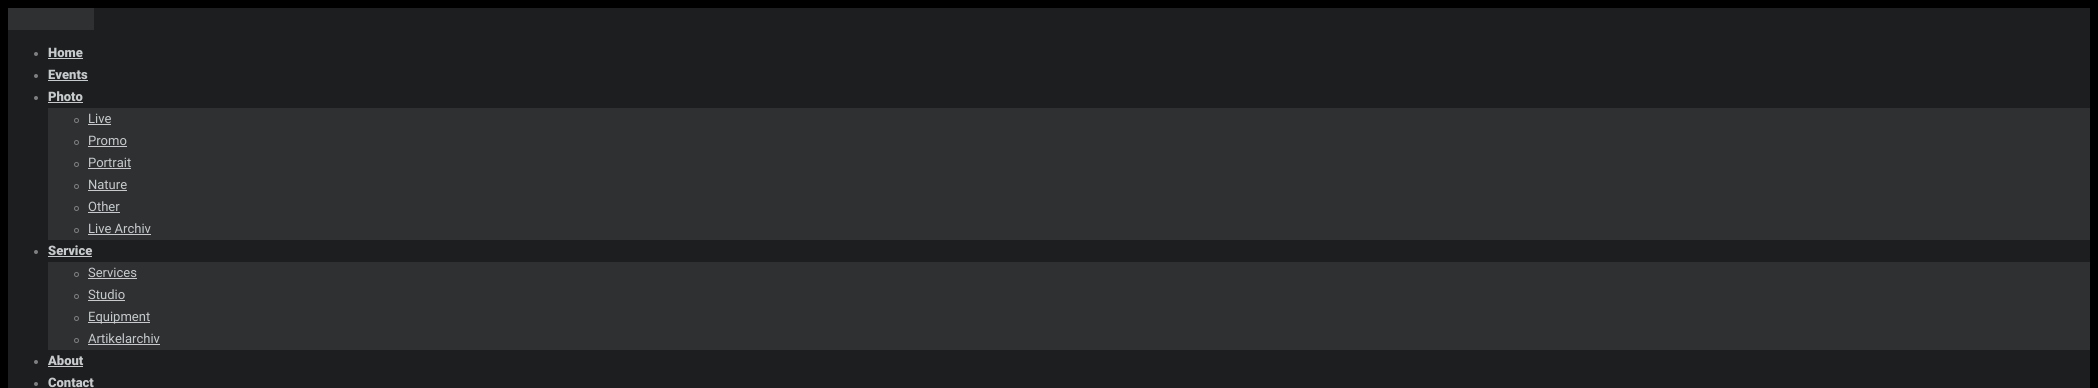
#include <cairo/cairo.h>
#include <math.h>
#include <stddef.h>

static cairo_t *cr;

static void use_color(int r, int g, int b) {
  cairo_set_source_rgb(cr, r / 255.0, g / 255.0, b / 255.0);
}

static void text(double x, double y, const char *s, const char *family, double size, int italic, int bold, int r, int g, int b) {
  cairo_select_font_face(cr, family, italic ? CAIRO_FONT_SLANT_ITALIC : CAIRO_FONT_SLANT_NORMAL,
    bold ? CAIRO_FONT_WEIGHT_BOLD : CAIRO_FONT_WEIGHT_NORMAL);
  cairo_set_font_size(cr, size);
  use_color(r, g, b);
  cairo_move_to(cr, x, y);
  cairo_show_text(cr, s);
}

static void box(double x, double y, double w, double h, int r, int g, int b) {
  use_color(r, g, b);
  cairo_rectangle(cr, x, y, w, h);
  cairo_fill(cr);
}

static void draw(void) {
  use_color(0, 0, 0);
  cairo_paint(cr);
  box(8, 8, 2082, 380, 29, 30, 31);
  box(8, 8, 86, 22, 46, 48, 50);
  use_color(126, 127, 129);
  cairo_arc(cr, 36, 54, 2, 0, 2 * M_PI);
  cairo_fill(cr);
  box(48, 58, 35, 1, 199, 202, 204);
  use_color(126, 127, 129);
  cairo_arc(cr, 36, 76, 2, 0, 2 * M_PI);
  cairo_fill(cr);
  box(48, 80, 40, 1, 199, 202, 204);
  use_color(126, 127, 129);
  cairo_arc(cr, 36, 98, 2, 0, 2 * M_PI);
  cairo_fill(cr);
  box(48, 102, 35, 1, 199, 202, 204);
  box(48, 108, 2042, 132, 46, 48, 50);
  cairo_arc(cr, 76.5, 120.5, 2, 0, 2 * M_PI);
  use_color(126, 127, 129);
  cairo_set_line_width(cr, 1);
  cairo_stroke(cr);
  box(88, 124, 23, 1, 200, 201, 204);
  cairo_arc(cr, 76.5, 142.5, 2, 0, 2 * M_PI);
  use_color(126, 127, 129);
  cairo_stroke(cr);
  box(88, 146, 39, 1, 200, 201, 204);
  cairo_arc(cr, 76.5, 164.5, 2, 0, 2 * M_PI);
  use_color(126, 127, 129);
  cairo_stroke(cr);
  box(88, 168, 43, 1, 200, 201, 204);
  cairo_arc(cr, 76.5, 186.5, 2, 0, 2 * M_PI);
  use_color(126, 127, 129);
  cairo_stroke(cr);
  box(88, 190, 39, 1, 200, 201, 204);
  cairo_arc(cr, 76.5, 208.5, 2, 0, 2 * M_PI);
  use_color(126, 127, 129);
  cairo_stroke(cr);
  box(88, 212, 32, 1, 200, 201, 204);
  cairo_arc(cr, 76.5, 230.5, 2, 0, 2 * M_PI);
  use_color(126, 127, 129);
  cairo_stroke(cr);
  box(88, 234, 63, 1, 200, 201, 204);
  use_color(126, 127, 129);
  cairo_arc(cr, 36, 252, 2, 0, 2 * M_PI);
  cairo_fill(cr);
  box(48, 256, 44, 1, 199, 202, 204);
  box(48, 262, 2042, 88, 46, 48, 50);
  cairo_arc(cr, 76.5, 274.5, 2, 0, 2 * M_PI);
  use_color(126, 127, 129);
  cairo_stroke(cr);
  box(88, 278, 49, 1, 200, 201, 204);
  cairo_arc(cr, 76.5, 296.5, 2, 0, 2 * M_PI);
  use_color(126, 127, 129);
  cairo_stroke(cr);
  box(88, 300, 37, 1, 200, 201, 204);
  cairo_arc(cr, 76.5, 318.5, 2, 0, 2 * M_PI);
  use_color(126, 127, 129);
  cairo_stroke(cr);
  box(88, 322, 62, 1, 200, 201, 204);
  cairo_arc(cr, 76.5, 340.5, 2, 0, 2 * M_PI);
  use_color(126, 127, 129);
  cairo_stroke(cr);
  box(88, 344, 72, 1, 200, 201, 204);
  use_color(126, 127, 129);
  cairo_arc(cr, 36, 362, 2, 0, 2 * M_PI);
  cairo_fill(cr);
  box(48, 366, 35, 1, 199, 202, 204);
  use_color(126, 127, 129);
  cairo_arc(cr, 36, 384, 2, 0, 2 * M_PI);
  cairo_fill(cr);
  text(48, 57, "Home", "Roboto Black", 13, 0, 0, 199, 202, 204);
  text(48, 79, "Events", "Roboto Black", 13, 0, 0, 199, 202, 204);
  text(48, 101, "Photo", "Roboto Black", 13, 0, 0, 199, 202, 204);
  text(88, 123, "Live", "Roboto", 13, 0, 0, 199, 202, 204);
  text(88, 145, "Promo", "Roboto", 13, 0, 0, 199, 202, 204);
  text(88, 167, "Portrait", "Roboto", 13, 0, 0, 199, 202, 204);
  text(88, 189, "Nature", "Roboto", 13, 0, 0, 199, 202, 204);
  text(88, 211, "Other", "Roboto", 13, 0, 0, 199, 202, 204);
  text(88, 233, "Live Archiv", "Roboto", 13, 0, 0, 199, 202, 204);
  text(48, 255, "Service", "Roboto Black", 13, 0, 0, 199, 202, 204);
  text(88, 277, "Services", "Roboto", 13, 0, 0, 199, 202, 204);
  text(88, 299, "Studio", "Roboto", 13, 0, 0, 199, 202, 204);
  text(88, 321, "Equipment", "Roboto", 13, 0, 0, 199, 202, 204);
  text(88, 343, "Artikelarchiv", "Roboto", 13, 0, 0, 199, 202, 204);
  text(48, 365, "About", "Roboto Black", 13, 0, 0, 199, 202, 204);
  text(48, 387, "Contact", "Roboto Black", 13, 0, 0, 199, 202, 204);
}

int main(void) {
  cairo_surface_t *surface = cairo_image_surface_create(CAIRO_FORMAT_RGB24, 2098, 388);
  cr = cairo_create(surface);
  cairo_font_options_t *options = cairo_font_options_create();
  cairo_font_options_set_hint_metrics(options, CAIRO_HINT_METRICS_OFF);
  cairo_font_options_set_hint_style(options, CAIRO_HINT_STYLE_NONE);
  cairo_set_font_options(cr, options);
  cairo_set_miter_limit(cr, 4);
  draw();
  cairo_surface_write_to_png(surface, "out.png");
  cairo_font_options_destroy(options);
  cairo_destroy(cr);
  cairo_surface_destroy(surface);
  return 0;
}
